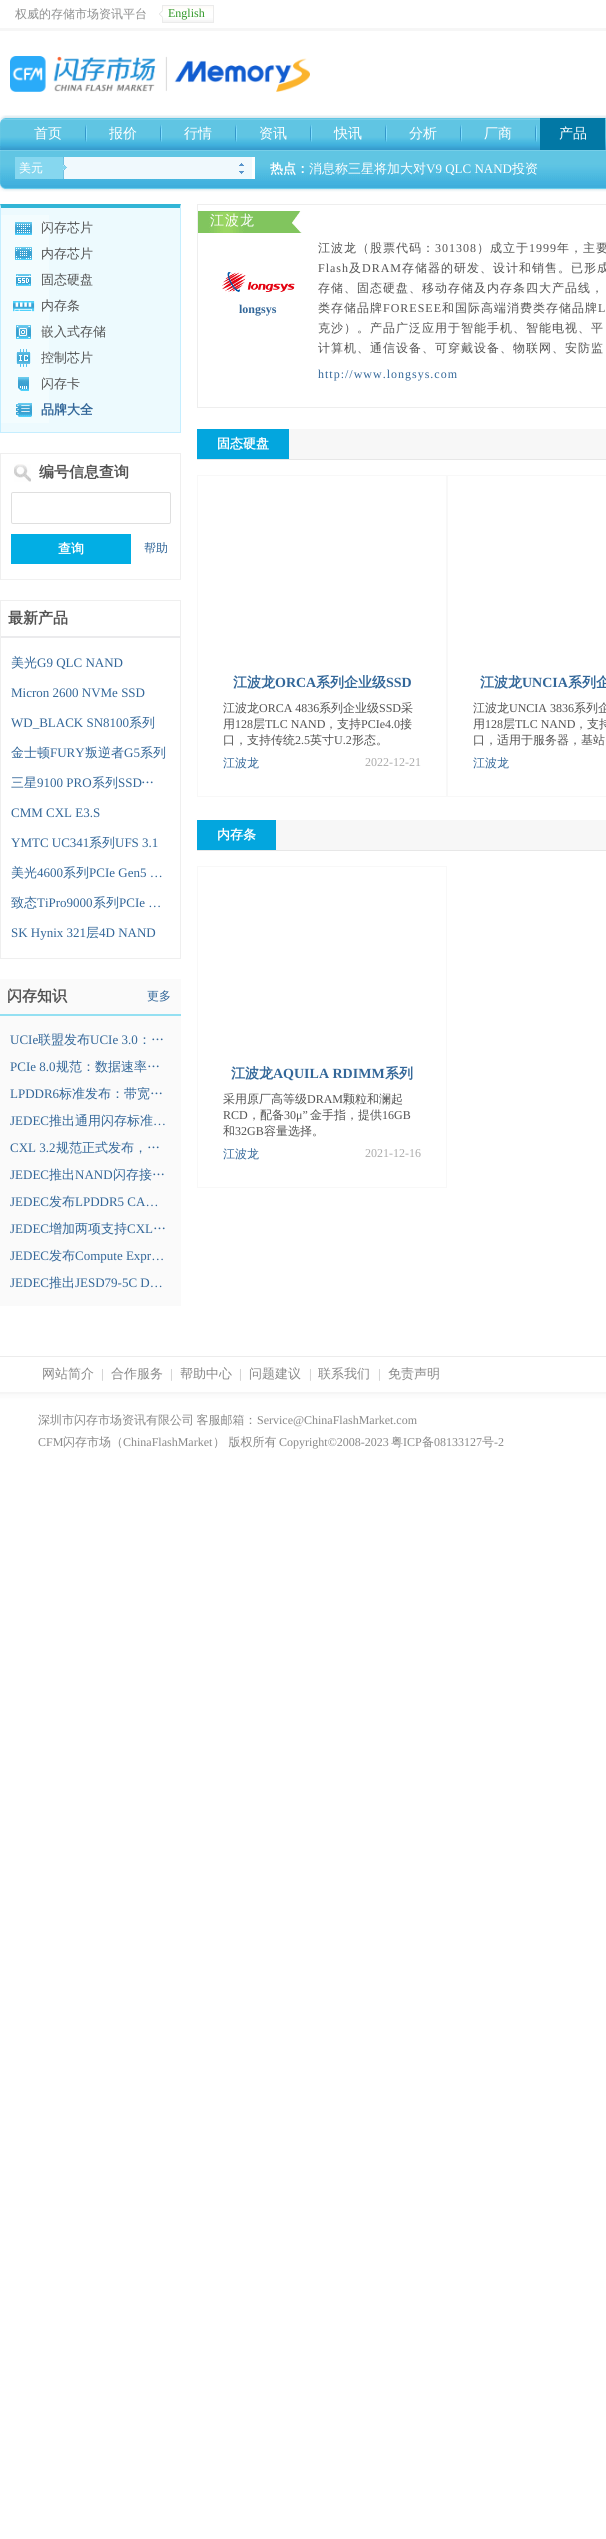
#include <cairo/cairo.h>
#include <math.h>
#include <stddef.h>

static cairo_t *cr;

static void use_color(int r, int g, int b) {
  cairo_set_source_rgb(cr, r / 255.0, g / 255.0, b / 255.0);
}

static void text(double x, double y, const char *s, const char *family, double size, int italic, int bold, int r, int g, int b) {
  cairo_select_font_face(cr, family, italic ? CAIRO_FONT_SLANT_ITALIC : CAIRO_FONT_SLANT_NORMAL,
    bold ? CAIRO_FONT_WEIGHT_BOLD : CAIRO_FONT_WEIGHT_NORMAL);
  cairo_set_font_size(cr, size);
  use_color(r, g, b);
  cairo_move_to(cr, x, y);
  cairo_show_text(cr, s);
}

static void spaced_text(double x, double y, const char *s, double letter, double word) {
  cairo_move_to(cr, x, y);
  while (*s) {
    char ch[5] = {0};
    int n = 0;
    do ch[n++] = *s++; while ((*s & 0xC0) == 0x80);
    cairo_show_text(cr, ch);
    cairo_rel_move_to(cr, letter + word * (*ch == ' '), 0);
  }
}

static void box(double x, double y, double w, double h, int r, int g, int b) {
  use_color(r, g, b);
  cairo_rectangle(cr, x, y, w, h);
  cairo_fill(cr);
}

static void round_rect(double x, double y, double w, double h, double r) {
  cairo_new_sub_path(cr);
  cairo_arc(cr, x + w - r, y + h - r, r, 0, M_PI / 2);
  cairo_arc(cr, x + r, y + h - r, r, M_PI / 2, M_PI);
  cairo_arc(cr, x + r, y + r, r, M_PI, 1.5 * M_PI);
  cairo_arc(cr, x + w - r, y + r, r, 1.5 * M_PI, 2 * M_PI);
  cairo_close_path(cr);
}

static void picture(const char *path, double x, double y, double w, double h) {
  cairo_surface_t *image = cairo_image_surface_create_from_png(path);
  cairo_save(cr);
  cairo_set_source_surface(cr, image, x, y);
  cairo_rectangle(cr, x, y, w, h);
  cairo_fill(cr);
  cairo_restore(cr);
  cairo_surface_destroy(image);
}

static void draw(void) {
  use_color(255, 255, 255);
  cairo_paint(cr);
  picture("img_01.png", 159, 5, 55, 18);
  box(0, 28, 606, 3, 246, 246, 246);
  picture("img_02.png", 10, 56, 300, 36);
  picture("img_03.png", 0, 115, 606, 77);
  picture("img_04.png", 0, 118, 606, 32);
  picture("img_05.png", 85, 124, 2, 18);
  picture("img_05.png", 160, 124, 2, 18);
  picture("img_05.png", 235, 124, 2, 18);
  picture("img_05.png", 310, 124, 2, 18);
  picture("img_05.png", 385, 124, 2, 18);
  picture("img_05.png", 460, 124, 2, 18);
  picture("img_05.png", 535, 124, 2, 18);
  box(540, 118, 65, 32, 2, 120, 165);
  picture("img_06.png", 0, 150, 606, 37);
  picture("img_07.png", 15, 157, 240, 22);
  box(1, 208, 179, 224, 237, 250, 254);
  use_color(50, 181, 214);
  cairo_new_path(cr);
  cairo_move_to(cr, 0, 204);
  cairo_line_to(cr, 181, 204);
  cairo_line_to(cr, 180, 208);
  cairo_line_to(cr, 1, 208);
  cairo_close_path(cr);
  cairo_fill(cr);
  use_color(197, 238, 255);
  cairo_new_path(cr);
  cairo_move_to(cr, 181, 204);
  cairo_line_to(cr, 181, 433);
  cairo_line_to(cr, 180, 432);
  cairo_line_to(cr, 180, 208);
  cairo_close_path(cr);
  cairo_fill(cr);
  box(0, 432, 181, 1, 197, 238, 255);
  cairo_new_path(cr);
  cairo_move_to(cr, 0, 433);
  cairo_line_to(cr, 0, 204);
  cairo_line_to(cr, 1, 208);
  cairo_line_to(cr, 1, 432);
  cairo_close_path(cr);
  cairo_fill(cr);
  picture("img_08.png", 1, 215, 48, 26);
  picture("img_09.png", 1, 241, 48, 26);
  picture("img_10.png", 1, 267, 48, 26);
  picture("img_11.png", 1, 293, 48, 26);
  picture("img_12.png", 1, 319, 48, 26);
  picture("img_13.png", 1, 345, 48, 26);
  picture("img_14.png", 1, 371, 48, 26);
  picture("img_15.png", 1, 397, 48, 26);
  box(0, 453, 181, 1, 239, 239, 239);
  box(180, 453, 1, 127, 239, 239, 239);
  box(0, 579, 181, 1, 241, 241, 241);
  box(0, 453, 1, 127, 239, 239, 239);
  picture("img_16.png", 14, 464, 17, 18);
  round_rect(11.5, 492.5, 159, 31, 1.5);
  use_color(223, 223, 223);
  cairo_set_line_width(cr, 1);
  cairo_stroke(cr);
  box(11, 534, 120, 30, 2, 174, 228);
  cairo_rectangle(cr, 0.5, 600.5, 180, 358);
  use_color(239, 239, 239);
  cairo_stroke(cr);
  box(1, 636, 179, 2, 235, 235, 237);
  box(0, 979, 181, 327, 250, 250, 250);
  box(0, 1014, 181, 2, 148, 224, 242);
  cairo_rectangle(cr, 197.5, 204.5, 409, 203);
  use_color(238, 238, 238);
  cairo_stroke(cr);
  picture("img_17.png", 198, 208, 110, 25);
  picture("img_18.png", 222, 272, 73, 20);
  box(289, 429, 317, 30, 247, 247, 247);
  box(197, 459, 409, 1, 231, 231, 231);
  box(197, 429, 92, 30, 3, 166, 222);
  cairo_rectangle(cr, 197.5, 475.5, 249, 321);
  use_color(248, 248, 248);
  cairo_stroke(cr);
  cairo_rectangle(cr, 447.5, 475.5, 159, 321);
  cairo_stroke(cr);
  box(276, 820, 330, 30, 247, 247, 247);
  box(197, 850, 409, 1, 231, 231, 231);
  box(197, 820, 79, 30, 3, 166, 222);
  cairo_rectangle(cr, 197.5, 866.5, 249, 321);
  use_color(248, 248, 248);
  cairo_stroke(cr);
  box(0, 1356, 606, 1, 236, 236, 236);
  picture("img_19.png", 0, 1391, 606, 88);
  text(15, 18, "权威的存储市场资讯平台", "WenQuanYi Zen Hei Medium", 12, 0, 0, 142, 143, 143);
  text(168, 17, "English", "Liberation Serif", 12, 0, 0, 47, 151, 38);
  text(34, 138, "首页", "WenQuanYi Zen Hei Medium", 14, 0, 0, 255, 255, 255);
  text(109, 138, "报价", "WenQuanYi Zen Hei Medium", 14, 0, 0, 255, 255, 255);
  text(184, 138, "行情", "WenQuanYi Zen Hei Medium", 14, 0, 0, 255, 255, 255);
  text(259, 138, "资讯", "WenQuanYi Zen Hei Medium", 14, 0, 0, 255, 255, 255);
  text(334, 138, "快讯", "WenQuanYi Zen Hei Medium", 14, 0, 0, 255, 255, 255);
  text(409, 138, "分析", "WenQuanYi Zen Hei Medium", 14, 0, 0, 255, 255, 255);
  text(484, 138, "厂商", "WenQuanYi Zen Hei Medium", 14, 0, 0, 255, 255, 255);
  text(559, 138, "产品", "WenQuanYi Zen Hei Medium", 14, 0, 0, 255, 255, 255);
  text(19, 172, "美元", "WenQuanYi Zen Hei Medium", 12, 0, 0, 255, 255, 255);
  text(270, 173, "热点：", "WenQuanYi Zen Hei", 13, 0, 1, 255, 255, 255);
  text(309, 173, "消息称三星将加大对", "WenQuanYi Zen Hei Medium", 13, 0, 0, 255, 255, 255);
  text(426, 173, "V9 QLC NAND", "Liberation Serif", 13, 0, 0, 255, 255, 255);
  text(512, 173, "投资", "WenQuanYi Zen Hei Medium", 13, 0, 0, 255, 255, 255);
  text(41, 232, "闪存芯片", "WenQuanYi Zen Hei Medium", 13, 0, 0, 82, 82, 82);
  text(41, 258, "内存芯片", "WenQuanYi Zen Hei Medium", 13, 0, 0, 82, 82, 82);
  text(41, 284, "固态硬盘", "WenQuanYi Zen Hei Medium", 13, 0, 0, 82, 82, 82);
  text(41, 310, "内存条", "WenQuanYi Zen Hei Medium", 13, 0, 0, 82, 82, 82);
  text(41, 336, "嵌入式存储", "WenQuanYi Zen Hei Medium", 13, 0, 0, 82, 82, 82);
  text(41, 362, "控制芯片", "WenQuanYi Zen Hei Medium", 13, 0, 0, 82, 82, 82);
  text(41, 388, "闪存卡", "WenQuanYi Zen Hei Medium", 13, 0, 0, 82, 82, 82);
  text(41, 414, "品牌大全", "WenQuanYi Zen Hei", 13, 0, 1, 51, 103, 153);
  text(39, 477, "编号信息查询", "WenQuanYi Zen Hei", 15, 0, 1, 82, 82, 82);
  text(58, 553, "查询", "WenQuanYi Zen Hei", 13, 0, 1, 255, 255, 255);
  text(144, 552, "帮助", "WenQuanYi Zen Hei Medium", 12, 0, 0, 51, 103, 153);
  text(8, 623, "最新产品", "WenQuanYi Zen Hei", 15, 0, 1, 82, 82, 82);
  text(11, 667, "美光", "WenQuanYi Zen Hei Medium", 13, 0, 0, 51, 103, 153);
  text(37, 667, "G9 QLC NAND", "Liberation Serif", 13, 0, 0, 51, 103, 153);
  text(11, 697, "Micron 2600 NVMe SSD", "Liberation Serif", 13, 0, 0, 51, 103, 153);
  text(11, 727, "WD_BLACK SN8100", "Liberation Serif", 13, 0, 0, 51, 103, 153);
  text(129, 727, "系列", "WenQuanYi Zen Hei Medium", 13, 0, 0, 51, 103, 153);
  text(11, 757, "金士顿", "WenQuanYi Zen Hei Medium", 13, 0, 0, 51, 103, 153);
  text(50, 757, "FURY", "Liberation Serif", 13, 0, 0, 51, 103, 153);
  text(85, 757, "叛逆者", "WenQuanYi Zen Hei Medium", 13, 0, 0, 51, 103, 153);
  text(124, 757, "G5", "Liberation Serif", 13, 0, 0, 51, 103, 153);
  text(140, 757, "系列", "WenQuanYi Zen Hei Medium", 13, 0, 0, 51, 103, 153);
  text(11, 787, "三星", "WenQuanYi Zen Hei Medium", 13, 0, 0, 51, 103, 153);
  text(37, 787, "9100 PRO", "Liberation Serif", 13, 0, 0, 51, 103, 153);
  text(92, 787, "系列", "WenQuanYi Zen Hei Medium", 13, 0, 0, 51, 103, 153);
  text(118, 787, "SSD", "Liberation Serif", 13, 0, 0, 51, 103, 153);
  text(141, 787, "…", "WenQuanYi Zen Hei Medium", 13, 0, 0, 51, 103, 153);
  text(11, 817, "CMM CXL E3.S", "Liberation Serif", 13, 0, 0, 51, 103, 153);
  text(11, 847, "YMTC UC341", "Liberation Serif", 13, 0, 0, 51, 103, 153);
  text(89, 847, "系列", "WenQuanYi Zen Hei Medium", 13, 0, 0, 51, 103, 153);
  text(115, 847, "UFS 3.1", "Liberation Serif", 13, 0, 0, 51, 103, 153);
  text(11, 877, "美光", "WenQuanYi Zen Hei Medium", 13, 0, 0, 51, 103, 153);
  text(37, 877, "4600", "Liberation Serif", 13, 0, 0, 51, 103, 153);
  text(63, 877, "系列", "WenQuanYi Zen Hei Medium", 13, 0, 0, 51, 103, 153);
  text(89, 877, "PCIe Gen5 …", "Liberation Serif", 13, 0, 0, 51, 103, 153);
  text(11, 907, "致态", "WenQuanYi Zen Hei Medium", 13, 0, 0, 51, 103, 153);
  text(37, 907, "TiPro9000", "Liberation Serif", 13, 0, 0, 51, 103, 153);
  text(93, 907, "系列", "WenQuanYi Zen Hei Medium", 13, 0, 0, 51, 103, 153);
  text(119, 907, "PCIe …", "Liberation Serif", 13, 0, 0, 51, 103, 153);
  text(11, 937, "SK Hynix 321", "Liberation Serif", 13, 0, 0, 51, 103, 153);
  text(86, 937, "层", "WenQuanYi Zen Hei Medium", 13, 0, 0, 51, 103, 153);
  text(99, 937, "4D NAND", "Liberation Serif", 13, 0, 0, 51, 103, 153);
  text(7, 1001, "闪存知识", "WenQuanYi Zen Hei", 15, 0, 1, 82, 82, 82);
  text(147, 1000, "更多", "WenQuanYi Zen Hei Medium", 12, 0, 0, 51, 103, 153);
  text(10, 1044, "UCIe", "Liberation Serif", 13, 0, 0, 51, 103, 153);
  text(38, 1044, "联盟发布", "WenQuanYi Zen Hei Medium", 13, 0, 0, 51, 103, 153);
  text(90, 1044, "UCIe 3.0", "Liberation Serif", 13, 0, 0, 51, 103, 153);
  text(138, 1044, "：…", "WenQuanYi Zen Hei Medium", 13, 0, 0, 51, 103, 153);
  text(10, 1071, "PCIe 8.0", "Liberation Serif", 13, 0, 0, 51, 103, 153);
  text(56, 1071, "规范：数据速率…", "WenQuanYi Zen Hei Medium", 13, 0, 0, 51, 103, 153);
  text(10, 1098, "LPDDR6", "Liberation Serif", 13, 0, 0, 51, 103, 153);
  text(59, 1098, "标准发布：带宽…", "WenQuanYi Zen Hei Medium", 13, 0, 0, 51, 103, 153);
  text(10, 1125, "JEDEC", "Liberation Serif", 13, 0, 0, 51, 103, 153);
  text(49, 1125, "推出通用闪存标准", "WenQuanYi Zen Hei Medium", 13, 0, 0, 51, 103, 153);
  text(153, 1125, "…", "Liberation Serif", 13, 0, 0, 51, 103, 153);
  text(10, 1152, "CXL 3.2", "Liberation Serif", 13, 0, 0, 51, 103, 153);
  text(56, 1152, "规范正式发布，…", "WenQuanYi Zen Hei Medium", 13, 0, 0, 51, 103, 153);
  text(10, 1179, "JEDEC", "Liberation Serif", 13, 0, 0, 51, 103, 153);
  text(49, 1179, "推出", "WenQuanYi Zen Hei Medium", 13, 0, 0, 51, 103, 153);
  text(75, 1179, "NAND", "Liberation Serif", 13, 0, 0, 51, 103, 153);
  text(113, 1179, "闪存接…", "WenQuanYi Zen Hei Medium", 13, 0, 0, 51, 103, 153);
  text(10, 1206, "JEDEC", "Liberation Serif", 13, 0, 0, 51, 103, 153);
  text(49, 1206, "发布", "WenQuanYi Zen Hei Medium", 13, 0, 0, 51, 103, 153);
  text(75, 1206, "LPDDR5 CA…", "Liberation Serif", 13, 0, 0, 51, 103, 153);
  text(10, 1233, "JEDEC", "Liberation Serif", 13, 0, 0, 51, 103, 153);
  text(49, 1233, "增加两项支持", "WenQuanYi Zen Hei Medium", 13, 0, 0, 51, 103, 153);
  text(127, 1233, "CXL", "Liberation Serif", 13, 0, 0, 51, 103, 153);
  text(153, 1233, "…", "WenQuanYi Zen Hei Medium", 13, 0, 0, 51, 103, 153);
  text(10, 1260, "JEDEC", "Liberation Serif", 13, 0, 0, 51, 103, 153);
  text(49, 1260, "发布", "WenQuanYi Zen Hei Medium", 13, 0, 0, 51, 103, 153);
  text(75, 1260, "Compute Expr…", "Liberation Serif", 13, 0, 0, 51, 103, 153);
  text(10, 1287, "JEDEC", "Liberation Serif", 13, 0, 0, 51, 103, 153);
  text(49, 1287, "推出", "WenQuanYi Zen Hei Medium", 13, 0, 0, 51, 103, 153);
  text(75, 1287, "JESD79-5C D…", "Liberation Serif", 13, 0, 0, 51, 103, 153);
  cairo_select_font_face(cr, "WenQuanYi Zen Hei Medium", CAIRO_FONT_SLANT_NORMAL, CAIRO_FONT_WEIGHT_NORMAL);
  cairo_set_font_size(cr, 14);
  use_color(255, 255, 255);
  spaced_text(210, 225, "江波龙", 1, 0);
  text(239, 313, "longsys", "Liberation Serif", 12, 0, 1, 51, 103, 153);
  cairo_select_font_face(cr, "WenQuanYi Zen Hei Medium", CAIRO_FONT_SLANT_NORMAL, CAIRO_FONT_WEIGHT_NORMAL);
  use_color(82, 82, 82);
  spaced_text(318, 252, "江波龙（股票代码：", 1, 0);
  cairo_select_font_face(cr, "Liberation Serif", CAIRO_FONT_SLANT_NORMAL, CAIRO_FONT_WEIGHT_NORMAL);
  spaced_text(435, 252, "301308", 1, 0);
  cairo_select_font_face(cr, "WenQuanYi Zen Hei Medium", CAIRO_FONT_SLANT_NORMAL, CAIRO_FONT_WEIGHT_NORMAL);
  spaced_text(477, 252, "）成立于", 1, 0);
  cairo_select_font_face(cr, "Liberation Serif", CAIRO_FONT_SLANT_NORMAL, CAIRO_FONT_WEIGHT_NORMAL);
  spaced_text(529, 252, "1999", 1, 0);
  cairo_select_font_face(cr, "WenQuanYi Zen Hei Medium", CAIRO_FONT_SLANT_NORMAL, CAIRO_FONT_WEIGHT_NORMAL);
  spaced_text(557, 252, "年，主要", 1, 0);
  cairo_select_font_face(cr, "Liberation Serif", CAIRO_FONT_SLANT_NORMAL, CAIRO_FONT_WEIGHT_NORMAL);
  spaced_text(318, 272, "Flash", 1, 0);
  cairo_select_font_face(cr, "WenQuanYi Zen Hei Medium", CAIRO_FONT_SLANT_NORMAL, CAIRO_FONT_WEIGHT_NORMAL);
  spaced_text(349, 272, "及", 1, 0);
  cairo_select_font_face(cr, "Liberation Serif", CAIRO_FONT_SLANT_NORMAL, CAIRO_FONT_WEIGHT_NORMAL);
  spaced_text(362, 272, "DRAM", 1, 0);
  cairo_select_font_face(cr, "WenQuanYi Zen Hei Medium", CAIRO_FONT_SLANT_NORMAL, CAIRO_FONT_WEIGHT_NORMAL);
  spaced_text(402, 272, "存储器的研发、设计和销售。已形成", 1, 0);
  spaced_text(318, 292, "存储、固态硬盘、移动存储及内存条四大产品线，", 1, 0);
  spaced_text(318, 312, "类存储品牌", 1, 0);
  cairo_select_font_face(cr, "Liberation Serif", CAIRO_FONT_SLANT_NORMAL, CAIRO_FONT_WEIGHT_NORMAL);
  spaced_text(383, 312, "FORESEE", 1, 0);
  cairo_select_font_face(cr, "WenQuanYi Zen Hei Medium", CAIRO_FONT_SLANT_NORMAL, CAIRO_FONT_WEIGHT_NORMAL);
  spaced_text(442, 312, "和国际高端消费类存储品牌", 1, 0);
  cairo_select_font_face(cr, "Liberation Serif", CAIRO_FONT_SLANT_NORMAL, CAIRO_FONT_WEIGHT_NORMAL);
  spaced_text(598, 312, "L", 1, 0);
  cairo_select_font_face(cr, "WenQuanYi Zen Hei Medium", CAIRO_FONT_SLANT_NORMAL, CAIRO_FONT_WEIGHT_NORMAL);
  spaced_text(318, 332, "克沙）。产品广泛应用于智能手机、智能电视、平", 1, 0);
  spaced_text(318, 352, "计算机、通信设备、可穿戴设备、物联网、安防监", 1, 0);
  cairo_select_font_face(cr, "Liberation Serif", CAIRO_FONT_SLANT_NORMAL, CAIRO_FONT_WEIGHT_NORMAL);
  use_color(51, 103, 153);
  spaced_text(318, 378, "http://www.longsys.com", 1, 0);
  text(217, 448, "固态硬盘", "WenQuanYi Zen Hei", 13, 0, 1, 255, 255, 255);
  text(233, 687, "江波龙", "WenQuanYi Zen Hei", 14, 0, 1, 51, 103, 153);
  text(275, 687, "ORCA", "Liberation Serif", 14, 0, 1, 51, 103, 153);
  text(316, 687, "系列企业级", "WenQuanYi Zen Hei", 14, 0, 1, 51, 103, 153);
  text(386, 687, "SSD", "Liberation Serif", 14, 0, 1, 51, 103, 153);
  text(223, 712, "江波龙", "WenQuanYi Zen Hei Medium", 12, 0, 0, 82, 82, 82);
  text(259, 712, "ORCA 4836", "Liberation Serif", 12, 0, 0, 82, 82, 82);
  text(319, 712, "系列企业级", "WenQuanYi Zen Hei Medium", 12, 0, 0, 82, 82, 82);
  text(379, 712, "SSD", "Liberation Serif", 12, 0, 0, 82, 82, 82);
  text(401, 712, "采", "WenQuanYi Zen Hei Medium", 12, 0, 0, 82, 82, 82);
  text(223, 728, "用", "WenQuanYi Zen Hei Medium", 12, 0, 0, 82, 82, 82);
  text(235, 728, "128", "Liberation Serif", 12, 0, 0, 82, 82, 82);
  text(253, 728, "层", "WenQuanYi Zen Hei Medium", 12, 0, 0, 82, 82, 82);
  text(265, 728, "TLC NAND", "Liberation Serif", 12, 0, 0, 82, 82, 82);
  text(325, 728, "，支持", "WenQuanYi Zen Hei Medium", 12, 0, 0, 82, 82, 82);
  text(361, 728, "PCIe4.0", "Liberation Serif", 12, 0, 0, 82, 82, 82);
  text(400, 728, "接", "WenQuanYi Zen Hei Medium", 12, 0, 0, 82, 82, 82);
  text(223, 744, "口，支持传统", "WenQuanYi Zen Hei Medium", 12, 0, 0, 82, 82, 82);
  text(295, 744, "2.5", "Liberation Serif", 12, 0, 0, 82, 82, 82);
  text(310, 744, "英寸", "WenQuanYi Zen Hei Medium", 12, 0, 0, 82, 82, 82);
  text(334, 744, "U.2", "Liberation Serif", 12, 0, 0, 82, 82, 82);
  text(352, 744, "形态。", "WenQuanYi Zen Hei Medium", 12, 0, 0, 82, 82, 82);
  text(223, 767, "江波龙", "WenQuanYi Zen Hei Medium", 12, 0, 0, 51, 103, 153);
  text(365, 766, "2022-12-21", "Liberation Serif", 12, 0, 0, 171, 171, 171);
  text(480, 687, "江波龙", "WenQuanYi Zen Hei", 14, 0, 1, 51, 103, 153);
  text(522, 687, "UNCIA", "Liberation Serif", 14, 0, 1, 51, 103, 153);
  text(568, 687, "系列企", "WenQuanYi Zen Hei", 14, 0, 1, 51, 103, 153);
  text(473, 712, "江波龙", "WenQuanYi Zen Hei Medium", 12, 0, 0, 82, 82, 82);
  text(509, 712, "UNCIA 3836", "Liberation Serif", 12, 0, 0, 82, 82, 82);
  text(574, 712, "系列企", "WenQuanYi Zen Hei Medium", 12, 0, 0, 82, 82, 82);
  text(473, 728, "用", "WenQuanYi Zen Hei Medium", 12, 0, 0, 82, 82, 82);
  text(485, 728, "128", "Liberation Serif", 12, 0, 0, 82, 82, 82);
  text(503, 728, "层", "WenQuanYi Zen Hei Medium", 12, 0, 0, 82, 82, 82);
  text(515, 728, "TLC NAND", "Liberation Serif", 12, 0, 0, 82, 82, 82);
  text(575, 728, "，支持", "WenQuanYi Zen Hei Medium", 12, 0, 0, 82, 82, 82);
  text(473, 744, "口，适用于服务器，基站", "WenQuanYi Zen Hei Medium", 12, 0, 0, 82, 82, 82);
  text(473, 767, "江波龙", "WenQuanYi Zen Hei Medium", 12, 0, 0, 51, 103, 153);
  text(217, 839, "内存条", "WenQuanYi Zen Hei", 13, 0, 1, 255, 255, 255);
  text(231, 1078, "江波龙", "WenQuanYi Zen Hei", 14, 0, 1, 51, 103, 153);
  text(273, 1078, "AQUILA RDIMM", "Liberation Serif", 14, 0, 1, 51, 103, 153);
  text(385, 1078, "系列", "WenQuanYi Zen Hei", 14, 0, 1, 51, 103, 153);
  text(223, 1103, "采用原厂高等级", "WenQuanYi Zen Hei Medium", 12, 0, 0, 82, 82, 82);
  text(307, 1103, "DRAM", "Liberation Serif", 12, 0, 0, 82, 82, 82);
  text(343, 1103, "颗粒和澜起", "WenQuanYi Zen Hei Medium", 12, 0, 0, 82, 82, 82);
  text(223, 1119, "RCD", "Liberation Serif", 12, 0, 0, 82, 82, 82);
  text(248, 1119, "，配备", "WenQuanYi Zen Hei Medium", 12, 0, 0, 82, 82, 82);
  text(284, 1119, "30μ”", "Liberation Serif", 12, 0, 0, 82, 82, 82);
  text(310, 1119, "金手指，提供", "WenQuanYi Zen Hei Medium", 12, 0, 0, 82, 82, 82);
  text(382, 1119, "16GB", "Liberation Serif", 12, 0, 0, 82, 82, 82);
  text(223, 1135, "和", "WenQuanYi Zen Hei Medium", 12, 0, 0, 82, 82, 82);
  text(235, 1135, "32GB", "Liberation Serif", 12, 0, 0, 82, 82, 82);
  text(264, 1135, "容量选择。", "WenQuanYi Zen Hei Medium", 12, 0, 0, 82, 82, 82);
  text(223, 1158, "江波龙", "WenQuanYi Zen Hei Medium", 12, 0, 0, 51, 103, 153);
  text(365, 1157, "2021-12-16", "Liberation Serif", 12, 0, 0, 171, 171, 171);
  text(42, 1378, "网站简介", "WenQuanYi Zen Hei Medium", 13, 0, 0, 136, 136, 136);
  text(101, 1378, "|", "Liberation Serif", 13, 0, 0, 188, 188, 188);
  text(111, 1378, "合作服务", "WenQuanYi Zen Hei Medium", 13, 0, 0, 136, 136, 136);
  text(170, 1378, "|", "Liberation Serif", 13, 0, 0, 188, 188, 188);
  text(180, 1378, "帮助中心", "WenQuanYi Zen Hei Medium", 13, 0, 0, 136, 136, 136);
  text(239, 1378, "|", "Liberation Serif", 13, 0, 0, 188, 188, 188);
  text(249, 1378, "问题建议", "WenQuanYi Zen Hei Medium", 13, 0, 0, 136, 136, 136);
  text(309, 1378, "|", "Liberation Serif", 13, 0, 0, 188, 188, 188);
  text(318, 1378, "联系我们", "WenQuanYi Zen Hei Medium", 13, 0, 0, 136, 136, 136);
  text(378, 1378, "|", "Liberation Serif", 13, 0, 0, 188, 188, 188);
  text(388, 1378, "免责声明", "WenQuanYi Zen Hei Medium", 13, 0, 0, 136, 136, 136);
  cairo_set_font_size(cr, 12);
  spaced_text(38, 1424, "深圳市闪存市场资讯有限公司 客服邮箱：", 0, -1);
  text(257, 1424, "Service@ChinaFlashMarket.com", "Liberation Serif", 12, 0, 0, 136, 136, 136);
  text(38, 1446, "CFM", "Liberation Serif", 12, 0, 0, 136, 136, 136);
  text(63, 1446, "闪存市场（", "WenQuanYi Zen Hei Medium", 12, 0, 0, 136, 136, 136);
  text(123, 1446, "ChinaFlashMarket", "Liberation Serif", 12, 0, 0, 136, 136, 136);
  text(213, 1446, "） 版权所有", "WenQuanYi Zen Hei Medium", 12, 0, 0, 136, 136, 136);
  text(279, 1446, "Copyright©2008-2023", "Liberation Serif", 12, 0, 0, 136, 136, 136);
  text(391, 1446, "粤", "WenQuanYi Zen Hei Medium", 12, 0, 0, 136, 136, 136);
  text(403, 1446, "ICP", "Liberation Serif", 12, 0, 0, 136, 136, 136);
  text(422, 1446, "备", "WenQuanYi Zen Hei Medium", 12, 0, 0, 136, 136, 136);
  text(434, 1446, "08133127", "Liberation Serif", 12, 0, 0, 136, 136, 136);
  text(482, 1446, "号", "WenQuanYi Zen Hei Medium", 12, 0, 0, 136, 136, 136);
  text(494, 1446, "-2", "Liberation Serif", 12, 0, 0, 136, 136, 136);
}

int main(void) {
  cairo_surface_t *surface = cairo_image_surface_create(CAIRO_FORMAT_RGB24, 606, 2539);
  cr = cairo_create(surface);
  cairo_font_options_t *options = cairo_font_options_create();
  cairo_font_options_set_hint_metrics(options, CAIRO_HINT_METRICS_OFF);
  cairo_font_options_set_hint_style(options, CAIRO_HINT_STYLE_NONE);
  cairo_set_font_options(cr, options);
  cairo_set_miter_limit(cr, 4);
  draw();
  cairo_surface_write_to_png(surface, "out.png");
  cairo_font_options_destroy(options);
  cairo_destroy(cr);
  cairo_surface_destroy(surface);
  return 0;
}
